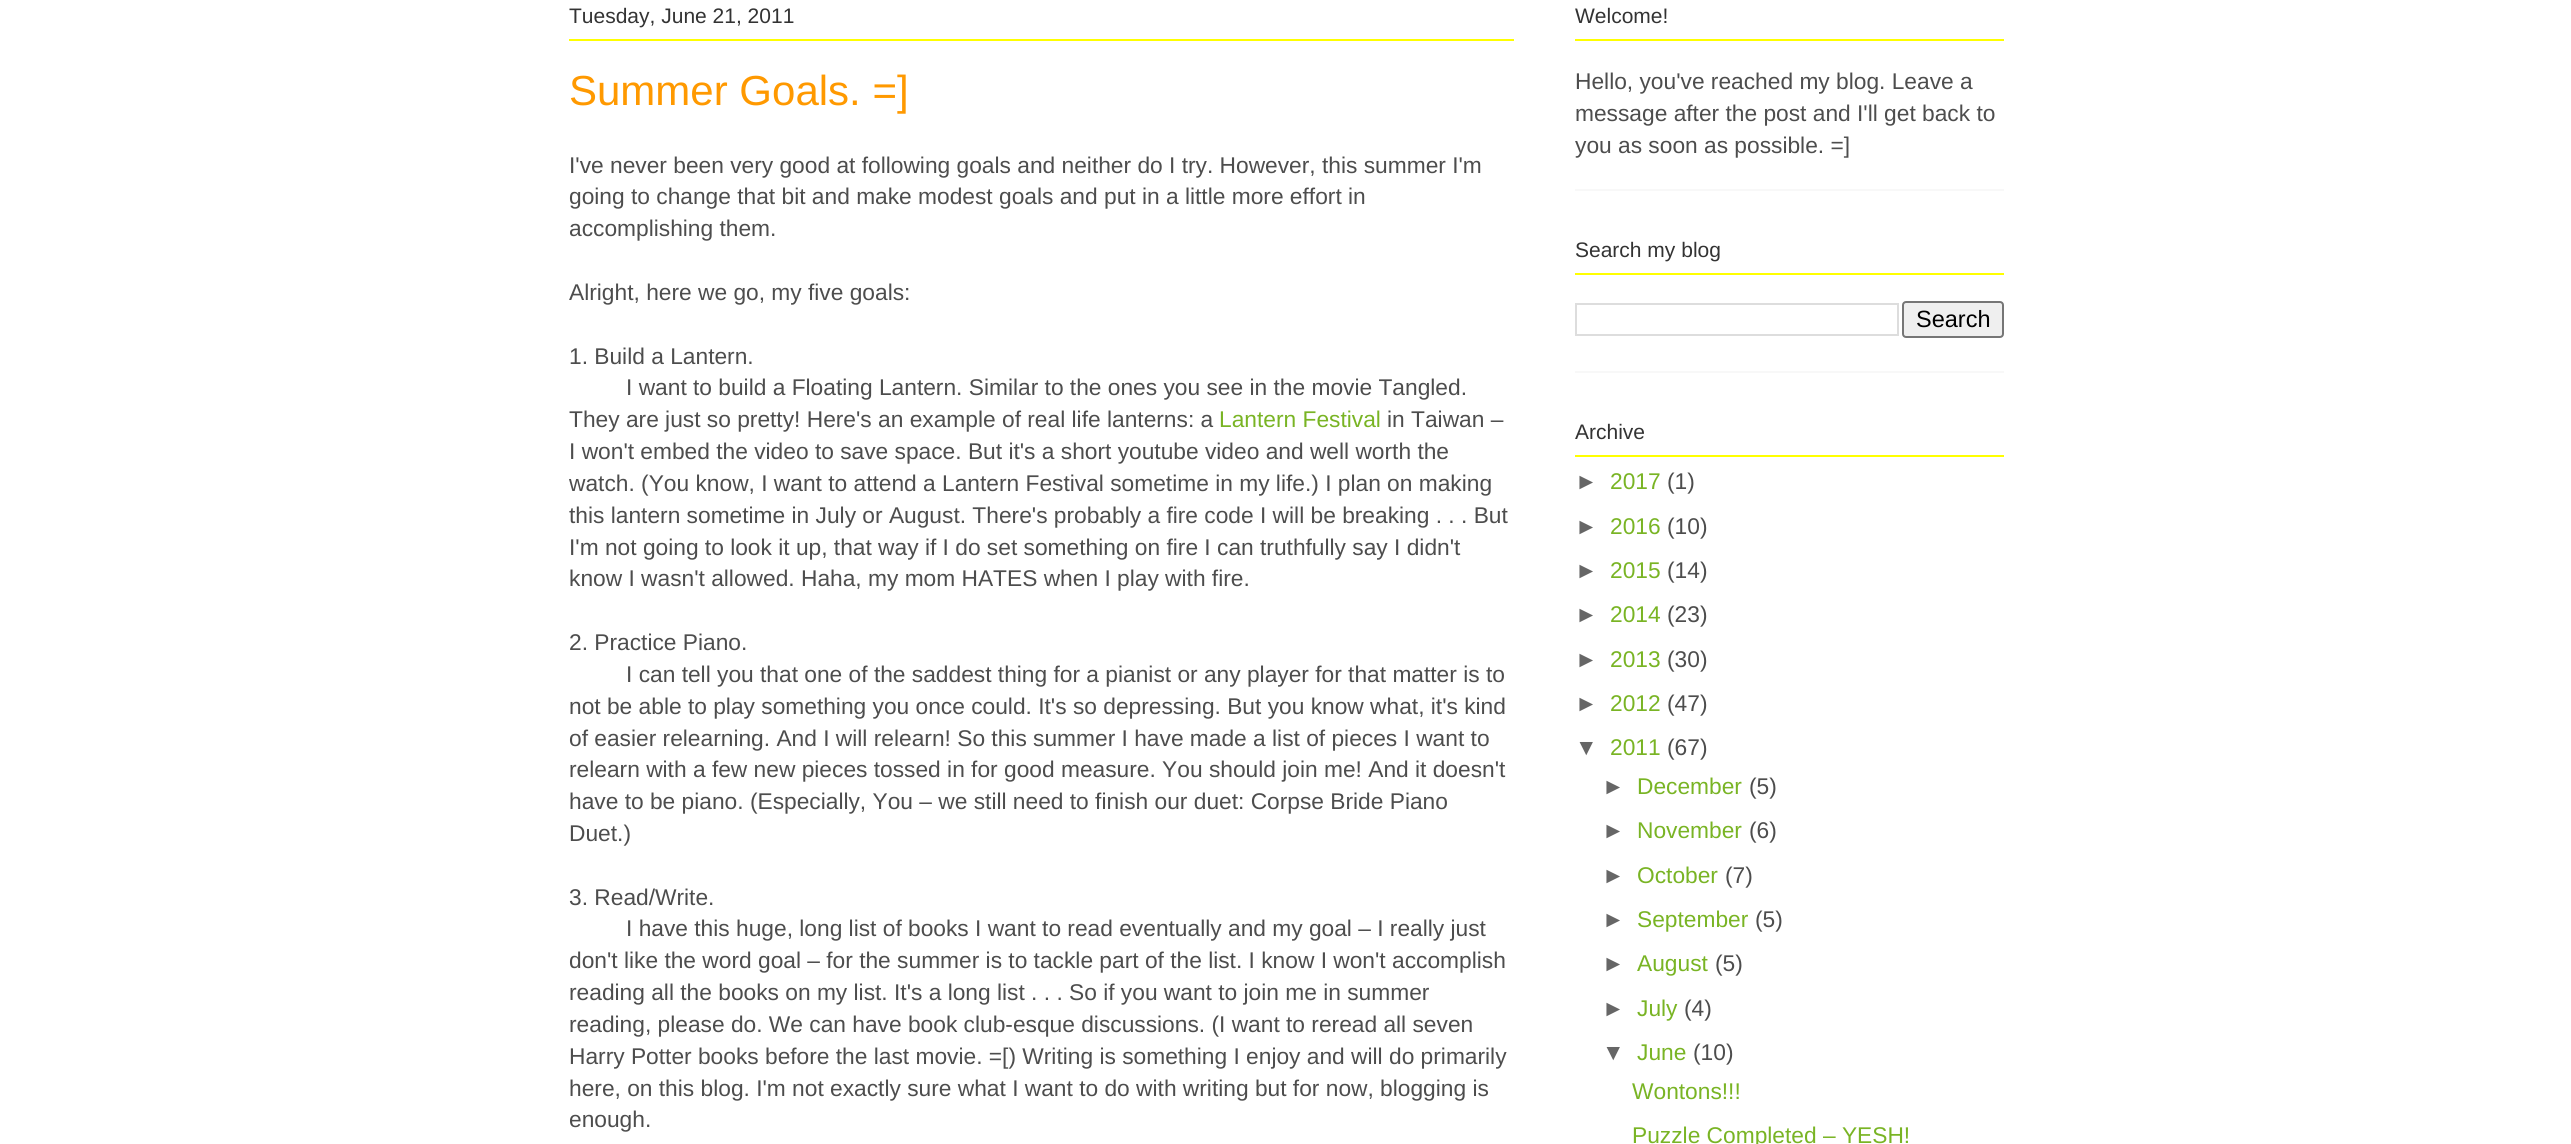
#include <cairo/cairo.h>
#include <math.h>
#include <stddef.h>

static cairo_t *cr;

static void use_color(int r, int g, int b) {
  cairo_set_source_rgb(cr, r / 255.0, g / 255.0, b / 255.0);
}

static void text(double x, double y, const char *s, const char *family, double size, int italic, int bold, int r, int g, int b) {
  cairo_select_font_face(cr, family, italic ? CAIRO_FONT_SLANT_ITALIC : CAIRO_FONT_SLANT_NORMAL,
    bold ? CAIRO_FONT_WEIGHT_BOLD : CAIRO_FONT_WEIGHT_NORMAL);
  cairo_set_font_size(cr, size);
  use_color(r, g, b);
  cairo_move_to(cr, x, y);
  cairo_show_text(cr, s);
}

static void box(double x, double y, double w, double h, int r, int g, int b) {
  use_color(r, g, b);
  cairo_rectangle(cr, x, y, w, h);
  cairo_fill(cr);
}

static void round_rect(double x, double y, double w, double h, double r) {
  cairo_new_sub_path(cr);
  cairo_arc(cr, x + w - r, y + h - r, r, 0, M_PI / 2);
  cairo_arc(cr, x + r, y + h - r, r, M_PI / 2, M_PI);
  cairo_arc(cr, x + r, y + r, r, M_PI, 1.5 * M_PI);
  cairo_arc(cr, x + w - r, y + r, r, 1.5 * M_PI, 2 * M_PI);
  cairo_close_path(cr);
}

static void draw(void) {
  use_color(255, 255, 255);
  cairo_paint(cr);
  box(569, 39, 945, 2, 255, 255, 0);
  box(1575, 189, 429, 2, 248, 248, 248);
  box(1575, 39, 429, 2, 255, 255, 0);
  box(1575, 371, 429, 2, 248, 248, 248);
  box(1575, 273, 429, 2, 255, 255, 0);
  cairo_rectangle(cr, 1576, 304, 322, 31);
  use_color(221, 221, 221);
  cairo_stroke(cr);
  use_color(239, 239, 239);
  round_rect(1903, 302, 100, 35, 3);
  cairo_fill_preserve(cr);
  use_color(118, 118, 118);
  cairo_stroke(cr);
  box(1575, 455, 429, 2, 255, 255, 0);
  text(569, 23, "Tuesday, June 21, 2011", "Liberation Sans", 21, 0, 0, 51, 51, 51);
  text(569, 105, "Summer Goals. =]", "Liberation Sans", 42, 0, 0, 255, 153, 0);
  text(569, 173, "I've never been very good at following goals and neither do I try. However, this summer I'm", "Liberation Sans", 22.75, 0, 0, 77, 77, 77);
  text(569, 204, "going to change that bit and make modest goals and put in a little more effort in", "Liberation Sans", 22.75, 0, 0, 77, 77, 77);
  text(569, 236, "accomplishing them.", "Liberation Sans", 22.75, 0, 0, 77, 77, 77);
  text(569, 300, "Alright, here we go, my five goals:", "Liberation Sans", 22.75, 0, 0, 77, 77, 77);
  text(569, 364, "1. Build a Lantern.", "Liberation Sans", 22.75, 0, 0, 77, 77, 77);
  text(626, 395, "I want to build a Floating Lantern. Similar to the ones you see in the movie Tangled.", "Liberation Sans", 22.75, 0, 0, 77, 77, 77);
  text(569, 427, "They are just so pretty! Here's an example of real life lanterns: a", "Liberation Sans", 22.75, 0, 0, 77, 77, 77);
  text(1219, 427, "Lantern Festival", "Liberation Sans", 22.75, 0, 0, 121, 180, 36);
  text(1387, 427, "in Taiwan –", "Liberation Sans", 22.75, 0, 0, 77, 77, 77);
  text(569, 459, "I won't embed the video to save space. But it's a short youtube video and well worth the", "Liberation Sans", 22.75, 0, 0, 77, 77, 77);
  text(569, 491, "watch. (You know, I want to attend a Lantern Festival sometime in my life.) I plan on making", "Liberation Sans", 22.75, 0, 0, 77, 77, 77);
  text(569, 523, "this lantern sometime in July or August. There's probably a fire code I will be breaking . . . But", "Liberation Sans", 22.75, 0, 0, 77, 77, 77);
  text(569, 555, "I'm not going to look it up, that way if I do set something on fire I can truthfully say I didn't", "Liberation Sans", 22.75, 0, 0, 77, 77, 77);
  text(569, 586, "know I wasn't allowed. Haha, my mom HATES when I play with fire.", "Liberation Sans", 22.75, 0, 0, 77, 77, 77);
  text(569, 650, "2. Practice Piano.", "Liberation Sans", 22.75, 0, 0, 77, 77, 77);
  text(626, 682, "I can tell you that one of the saddest thing for a pianist or any player for that matter is to", "Liberation Sans", 22.75, 0, 0, 77, 77, 77);
  text(569, 714, "not be able to play something you once could. It's so depressing. But you know what, it's kind", "Liberation Sans", 22.75, 0, 0, 77, 77, 77);
  text(569, 746, "of easier relearning. And I will relearn! So this summer I have made a list of pieces I want to", "Liberation Sans", 22.75, 0, 0, 77, 77, 77);
  text(569, 777, "relearn with a few new pieces tossed in for good measure. You should join me! And it doesn't", "Liberation Sans", 22.75, 0, 0, 77, 77, 77);
  text(569, 809, "have to be piano. (Especially, You – we still need to finish our duet: Corpse Bride Piano", "Liberation Sans", 22.75, 0, 0, 77, 77, 77);
  text(569, 841, "Duet.)", "Liberation Sans", 22.75, 0, 0, 77, 77, 77);
  text(569, 905, "3. Read/Write.", "Liberation Sans", 22.75, 0, 0, 77, 77, 77);
  text(626, 936, "I have this huge, long list of books I want to read eventually and my goal – I really just", "Liberation Sans", 22.75, 0, 0, 77, 77, 77);
  text(569, 968, "don't like the word goal – for the summer is to tackle part of the list. I know I won't accomplish", "Liberation Sans", 22.75, 0, 0, 77, 77, 77);
  text(569, 1000, "reading all the books on my list. It's a long list . . . So if you want to join me in summer", "Liberation Sans", 22.75, 0, 0, 77, 77, 77);
  text(569, 1032, "reading, please do. We can have book club-esque discussions. (I want to reread all seven", "Liberation Sans", 22.75, 0, 0, 77, 77, 77);
  text(569, 1064, "Harry Potter books before the last movie. =[) Writing is something I enjoy and will do primarily", "Liberation Sans", 22.75, 0, 0, 77, 77, 77);
  text(569, 1096, "here, on this blog. I'm not exactly sure what I want to do with writing but for now, blogging is", "Liberation Sans", 22.75, 0, 0, 77, 77, 77);
  text(569, 1127, "enough.", "Liberation Sans", 22.75, 0, 0, 77, 77, 77);
  text(1575, 23, "Welcome!", "Liberation Sans", 21, 0, 0, 51, 51, 51);
  text(1575, 89, "Hello, you've reached my blog. Leave a", "Liberation Sans", 22.75, 0, 0, 77, 77, 77);
  text(1575, 121, "message after the post and I'll get back to", "Liberation Sans", 22.75, 0, 0, 77, 77, 77);
  text(1575, 153, "you as soon as possible. =]", "Liberation Sans", 22.75, 0, 0, 77, 77, 77);
  text(1575, 257, "Search my blog", "Liberation Sans", 21, 0, 0, 51, 51, 51);
  text(1916, 327, "Search", "Liberation Sans", 23.5, 0, 0, 0, 0, 0);
  text(1575, 439, "Archive", "Liberation Sans", 21, 0, 0, 51, 51, 51);
  text(1575, 489, "►", "Liberation Sans", 22.75, 0, 0, 102, 102, 102);
  text(1610, 489, "2017", "Liberation Sans", 22.75, 0, 0, 121, 180, 36);
  text(1667, 489, "(1)", "Liberation Sans", 22.75, 0, 0, 77, 77, 77);
  text(1575, 534, "►", "Liberation Sans", 22.75, 0, 0, 102, 102, 102);
  text(1610, 534, "2016", "Liberation Sans", 22.75, 0, 0, 121, 180, 36);
  text(1667, 534, "(10)", "Liberation Sans", 22.75, 0, 0, 77, 77, 77);
  text(1575, 578, "►", "Liberation Sans", 22.75, 0, 0, 102, 102, 102);
  text(1610, 578, "2015", "Liberation Sans", 22.75, 0, 0, 121, 180, 36);
  text(1667, 578, "(14)", "Liberation Sans", 22.75, 0, 0, 77, 77, 77);
  text(1575, 622, "►", "Liberation Sans", 22.75, 0, 0, 102, 102, 102);
  text(1610, 622, "2014", "Liberation Sans", 22.75, 0, 0, 121, 180, 36);
  text(1667, 622, "(23)", "Liberation Sans", 22.75, 0, 0, 77, 77, 77);
  text(1575, 667, "►", "Liberation Sans", 22.75, 0, 0, 102, 102, 102);
  text(1610, 667, "2013", "Liberation Sans", 22.75, 0, 0, 121, 180, 36);
  text(1667, 667, "(30)", "Liberation Sans", 22.75, 0, 0, 77, 77, 77);
  text(1575, 711, "►", "Liberation Sans", 22.75, 0, 0, 102, 102, 102);
  text(1610, 711, "2012", "Liberation Sans", 22.75, 0, 0, 121, 180, 36);
  text(1667, 711, "(47)", "Liberation Sans", 22.75, 0, 0, 77, 77, 77);
  text(1575, 755, "▼", "Liberation Sans", 22.75, 0, 0, 102, 102, 102);
  text(1610, 755, "2011", "Liberation Sans", 22.75, 0, 0, 121, 180, 36);
  text(1667, 755, "(67)", "Liberation Sans", 22.75, 0, 0, 77, 77, 77);
  text(1602, 794, "►", "Liberation Sans", 22.75, 0, 0, 102, 102, 102);
  text(1637, 794, "December", "Liberation Sans", 22.75, 0, 0, 121, 180, 36);
  text(1749, 794, "(5)", "Liberation Sans", 22.75, 0, 0, 77, 77, 77);
  text(1602, 838, "►", "Liberation Sans", 22.75, 0, 0, 102, 102, 102);
  text(1637, 838, "November", "Liberation Sans", 22.75, 0, 0, 121, 180, 36);
  text(1749, 838, "(6)", "Liberation Sans", 22.75, 0, 0, 77, 77, 77);
  text(1602, 883, "►", "Liberation Sans", 22.75, 0, 0, 102, 102, 102);
  text(1637, 883, "October", "Liberation Sans", 22.75, 0, 0, 121, 180, 36);
  text(1725, 883, "(7)", "Liberation Sans", 22.75, 0, 0, 77, 77, 77);
  text(1602, 927, "►", "Liberation Sans", 22.75, 0, 0, 102, 102, 102);
  text(1637, 927, "September", "Liberation Sans", 22.75, 0, 0, 121, 180, 36);
  text(1755, 927, "(5)", "Liberation Sans", 22.75, 0, 0, 77, 77, 77);
  text(1602, 971, "►", "Liberation Sans", 22.75, 0, 0, 102, 102, 102);
  text(1637, 971, "August", "Liberation Sans", 22.75, 0, 0, 121, 180, 36);
  text(1715, 971, "(5)", "Liberation Sans", 22.75, 0, 0, 77, 77, 77);
  text(1602, 1016, "►", "Liberation Sans", 22.75, 0, 0, 102, 102, 102);
  text(1637, 1016, "July", "Liberation Sans", 22.75, 0, 0, 121, 180, 36);
  text(1684, 1016, "(4)", "Liberation Sans", 22.75, 0, 0, 77, 77, 77);
  text(1602, 1060, "▼", "Liberation Sans", 22.75, 0, 0, 102, 102, 102);
  text(1637, 1060, "June", "Liberation Sans", 22.75, 0, 0, 121, 180, 36);
  text(1693, 1060, "(10)", "Liberation Sans", 22.75, 0, 0, 77, 77, 77);
  text(1632, 1099, "Wontons!!!", "Liberation Sans", 22.75, 0, 0, 121, 180, 36);
  text(1632, 1143, "Puzzle Completed – YESH!", "Liberation Sans", 22.75, 0, 0, 121, 180, 36);
}

int main(void) {
  cairo_surface_t *surface = cairo_image_surface_create(CAIRO_FORMAT_RGB24, 2571, 1144);
  cr = cairo_create(surface);
  cairo_font_options_t *options = cairo_font_options_create();
  cairo_font_options_set_hint_metrics(options, CAIRO_HINT_METRICS_OFF);
  cairo_font_options_set_hint_style(options, CAIRO_HINT_STYLE_NONE);
  cairo_set_font_options(cr, options);
  cairo_set_miter_limit(cr, 4);
  draw();
  cairo_surface_write_to_png(surface, "out.png");
  cairo_font_options_destroy(options);
  cairo_destroy(cr);
  cairo_surface_destroy(surface);
  return 0;
}
